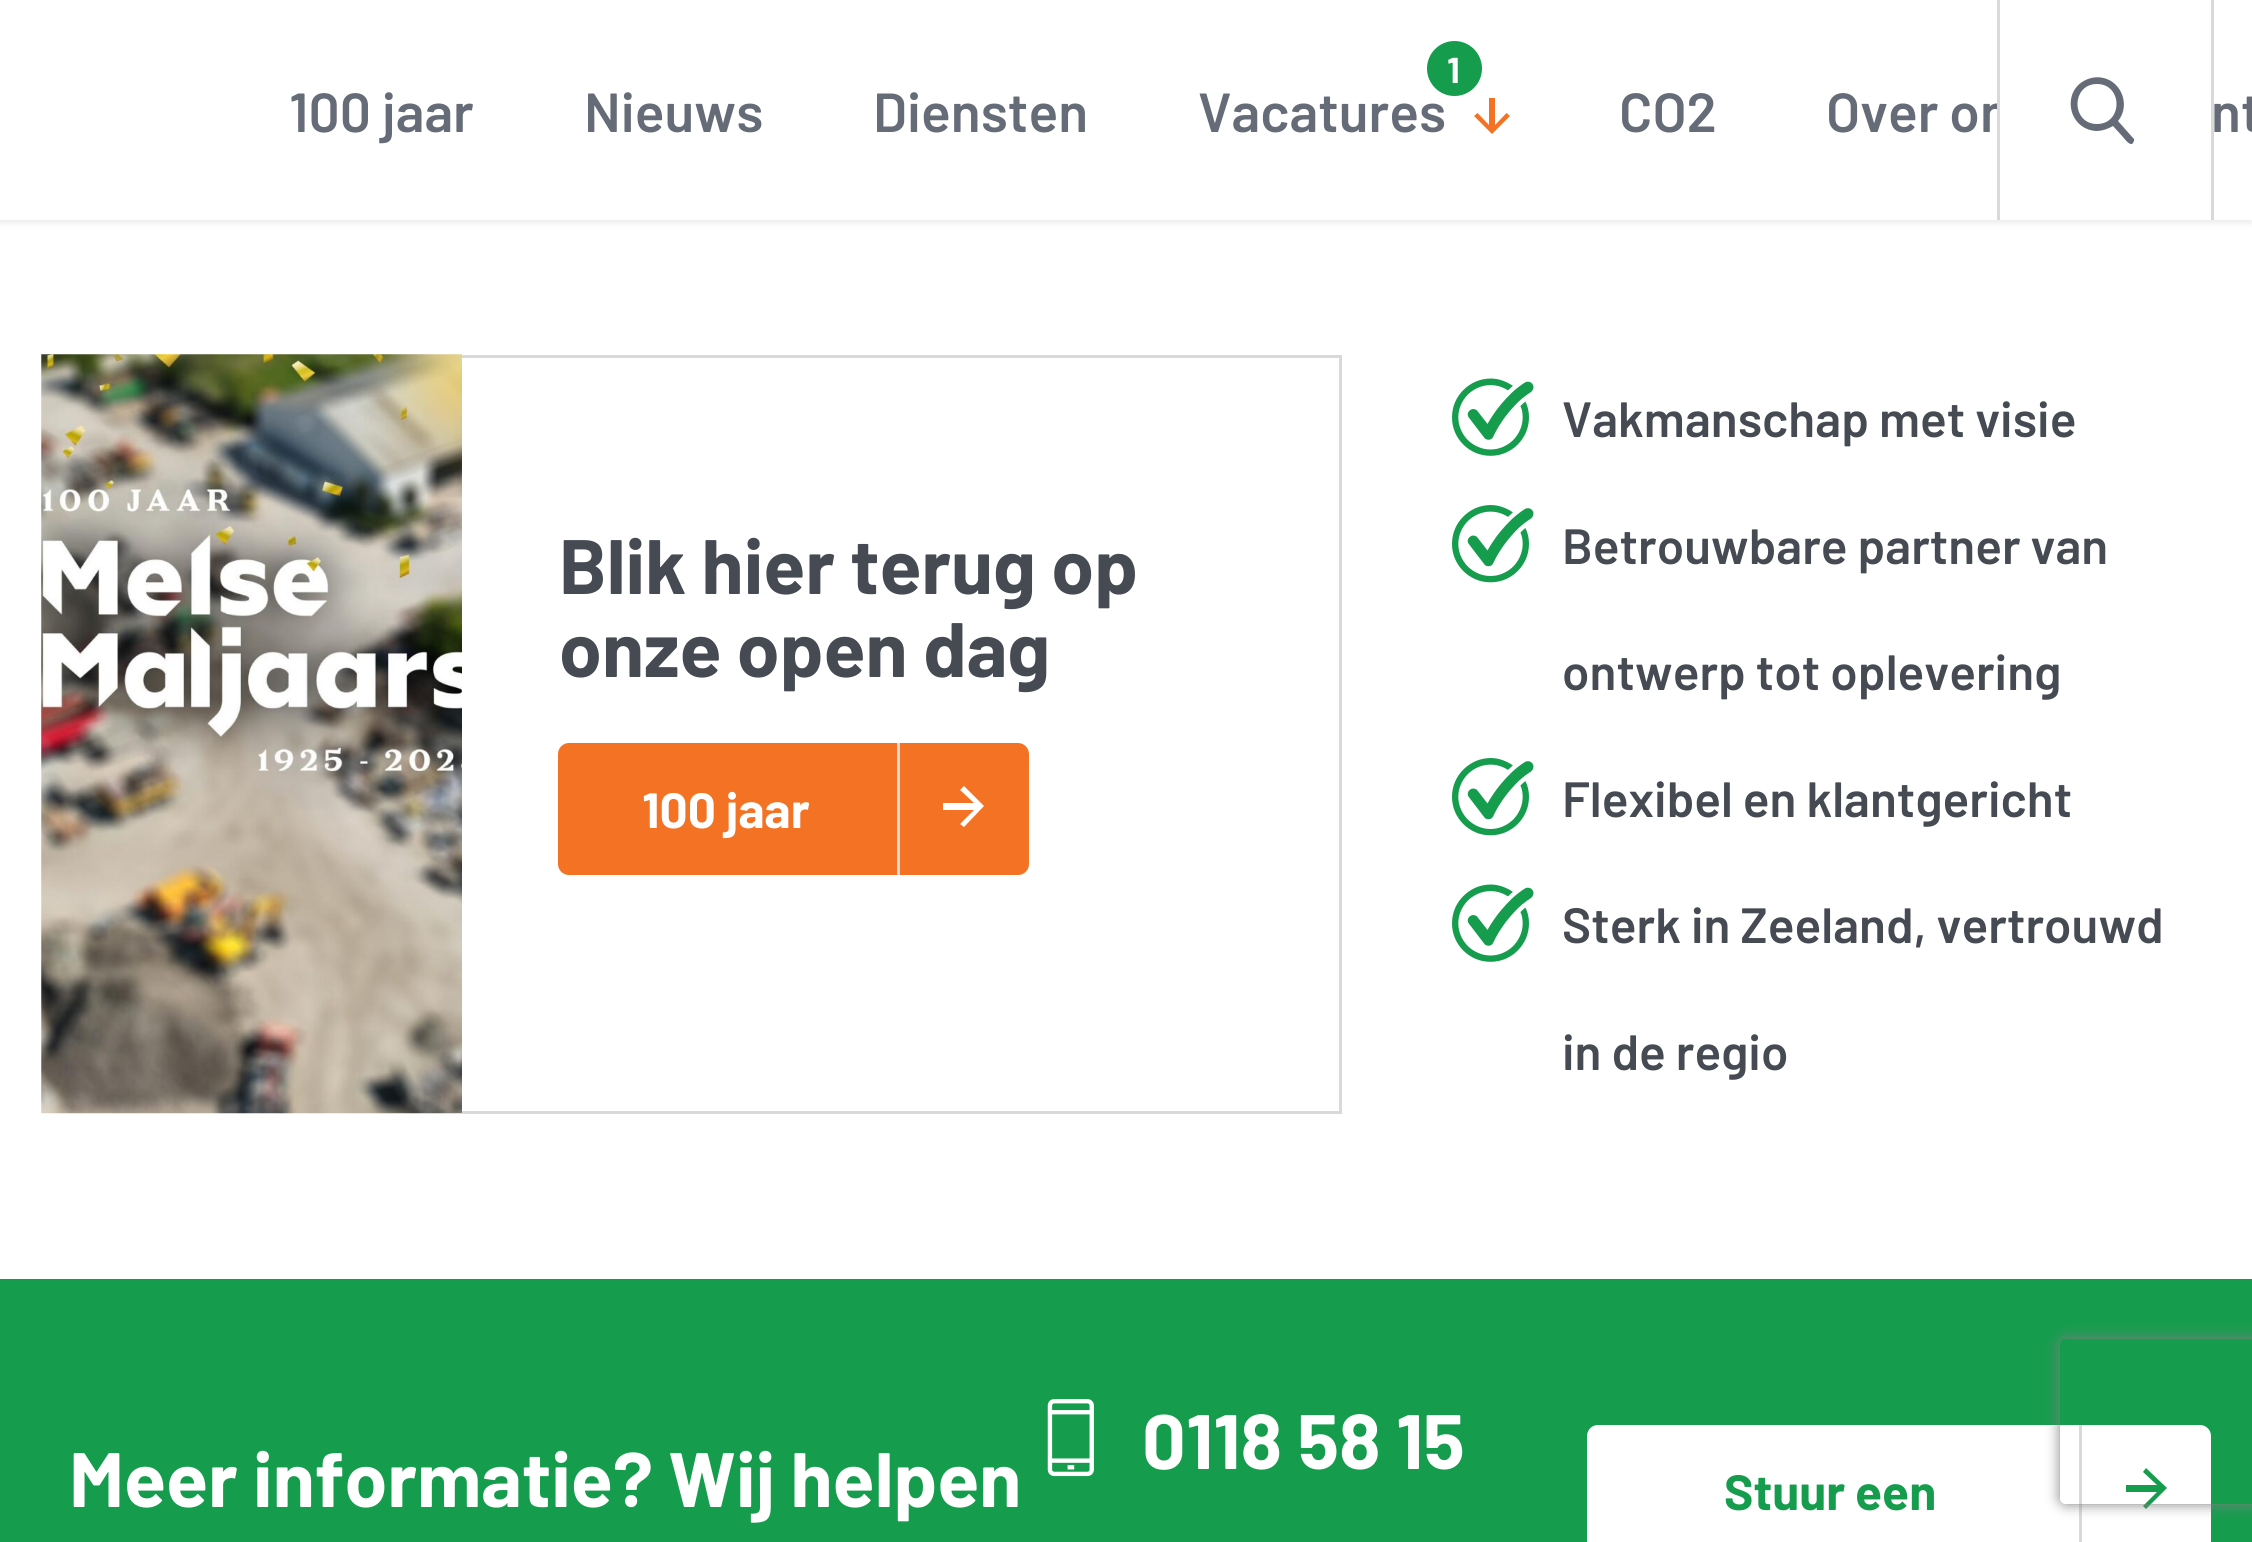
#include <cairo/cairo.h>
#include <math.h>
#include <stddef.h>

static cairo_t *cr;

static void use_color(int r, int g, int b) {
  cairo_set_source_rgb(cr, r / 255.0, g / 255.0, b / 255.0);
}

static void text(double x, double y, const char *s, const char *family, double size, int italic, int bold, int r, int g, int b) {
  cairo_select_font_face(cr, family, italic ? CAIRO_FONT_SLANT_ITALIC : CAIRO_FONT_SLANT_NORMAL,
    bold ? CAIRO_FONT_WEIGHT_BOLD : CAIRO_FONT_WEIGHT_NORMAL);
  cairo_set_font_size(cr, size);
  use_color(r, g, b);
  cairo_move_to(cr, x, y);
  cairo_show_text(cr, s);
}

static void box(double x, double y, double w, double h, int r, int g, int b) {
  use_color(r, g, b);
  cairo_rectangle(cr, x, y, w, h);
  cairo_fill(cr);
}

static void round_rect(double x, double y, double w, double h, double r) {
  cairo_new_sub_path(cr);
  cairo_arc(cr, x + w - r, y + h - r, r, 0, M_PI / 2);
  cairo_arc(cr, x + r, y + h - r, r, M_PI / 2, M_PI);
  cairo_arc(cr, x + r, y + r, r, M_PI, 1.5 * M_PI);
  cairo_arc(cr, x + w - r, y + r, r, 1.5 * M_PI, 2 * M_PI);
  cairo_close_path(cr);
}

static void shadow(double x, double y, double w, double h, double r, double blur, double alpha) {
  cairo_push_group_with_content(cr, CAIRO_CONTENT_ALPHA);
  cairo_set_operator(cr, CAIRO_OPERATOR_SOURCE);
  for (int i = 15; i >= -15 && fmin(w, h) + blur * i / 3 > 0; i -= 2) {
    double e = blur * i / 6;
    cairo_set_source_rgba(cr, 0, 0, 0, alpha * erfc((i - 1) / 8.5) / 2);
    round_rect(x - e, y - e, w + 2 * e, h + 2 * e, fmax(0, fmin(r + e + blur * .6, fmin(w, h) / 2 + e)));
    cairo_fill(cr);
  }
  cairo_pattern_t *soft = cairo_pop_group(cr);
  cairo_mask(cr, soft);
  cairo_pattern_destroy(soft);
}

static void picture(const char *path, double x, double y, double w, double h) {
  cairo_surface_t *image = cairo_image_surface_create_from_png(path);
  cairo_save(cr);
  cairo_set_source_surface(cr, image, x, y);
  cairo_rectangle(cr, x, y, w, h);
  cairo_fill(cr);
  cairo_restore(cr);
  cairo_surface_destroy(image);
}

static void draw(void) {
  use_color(255, 255, 255);
  cairo_paint(cr);
  use_color(46, 46, 46);
  shadow(0, 3, 2252, 220, 0, 3, 0.1);
  box(0, 0, 2252, 220, 255, 255, 255);
  box(2211, 0, 3, 220, 217, 217, 217);
  use_color(101, 107, 119);
  cairo_new_path(cr);
  cairo_move_to(cr, 2133, 138);
  cairo_line_to(cr, 2118, 121);
  cairo_curve_to(cr, 2128, 109, 2125, 90, 2111, 81);
  cairo_curve_to(cr, 2104, 77, 2096, 76, 2088, 79);
  cairo_curve_to(cr, 2061, 89, 2067, 129, 2096, 131);
  cairo_curve_to(cr, 2102, 131, 2108, 129, 2113, 126);
  cairo_line_to(cr, 2123, 137);
  cairo_curve_to(cr, 2124, 138, 2130, 147, 2133, 143);
  cairo_curve_to(cr, 2134, 141, 2135, 139, 2133, 138);
  cairo_close_path(cr);
  cairo_move_to(cr, 2097, 124);
  cairo_curve_to(cr, 2071, 124, 2071, 84, 2097, 84);
  cairo_curve_to(cr, 2123, 84, 2123, 124, 2097, 124);
  cairo_close_path(cr);
  cairo_fill(cr);
  use_color(243, 114, 36);
  cairo_new_path(cr);
  cairo_move_to(cr, 1510, 116);
  cairo_line_to(cr, 1506.5, 113);
  cairo_line_to(cr, 1495, 125);
  cairo_line_to(cr, 1495, 98);
  cairo_line_to(cr, 1489, 98);
  cairo_line_to(cr, 1489, 125);
  cairo_line_to(cr, 1477.5, 113);
  cairo_line_to(cr, 1474, 116);
  cairo_line_to(cr, 1492, 134);
  cairo_close_path(cr);
  cairo_fill(cr);
  picture("img_01.png", 41, 354, 421, 760);
  box(462, 355, 880, 3, 217, 217, 217);
  box(1339, 355, 3, 759, 217, 217, 217);
  box(462, 1111, 880, 3, 217, 217, 217);
  use_color(243, 114, 36);
  round_rect(558, 743, 471, 132, 11);
  cairo_fill(cr);
  box(897, 743, 3, 132, 217, 217, 217);
  use_color(255, 255, 255);
  cairo_new_path(cr);
  cairo_move_to(cr, 964, 786);
  cairo_line_to(cr, 960, 790);
  cairo_line_to(cr, 974, 803);
  cairo_line_to(cr, 943, 803);
  cairo_line_to(cr, 943, 810);
  cairo_line_to(cr, 974, 810);
  cairo_line_to(cr, 960, 824);
  cairo_line_to(cr, 964, 827);
  cairo_line_to(cr, 984, 806);
  cairo_close_path(cr);
  cairo_fill(cr);
  picture("img_02.png", 1452, 378, 82, 78);
  picture("img_03.png", 1452, 505, 82, 78);
  picture("img_03.png", 1452, 758, 82, 78);
  picture("img_02.png", 1452, 884, 82, 78);
  box(0, 1279, 2252, 263, 21, 156, 77);
  picture("img_04.png", 1047, 1399, 47, 78);
  use_color(255, 255, 255);
  round_rect(1587, 1425, 624, 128, 11);
  cairo_fill(cr);
  box(2079, 1425, 3, 117, 217, 217, 217);
  use_color(21, 156, 77);
  cairo_new_path(cr);
  cairo_move_to(cr, 2146, 1468);
  cairo_line_to(cr, 2143, 1472);
  cairo_line_to(cr, 2157, 1485);
  cairo_line_to(cr, 2126, 1485);
  cairo_line_to(cr, 2126, 1492);
  cairo_line_to(cr, 2157, 1492);
  cairo_line_to(cr, 2143, 1506);
  cairo_line_to(cr, 2146, 1509);
  cairo_line_to(cr, 2167, 1488);
  cairo_close_path(cr);
  cairo_fill(cr);
  cairo_save(cr);
  cairo_set_fill_rule(cr, CAIRO_FILL_RULE_EVEN_ODD);
  cairo_new_path(cr);
  cairo_move_to(cr, 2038, 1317);
  cairo_line_to(cr, 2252, 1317);
  cairo_line_to(cr, 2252, 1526);
  cairo_line_to(cr, 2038, 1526);
  cairo_close_path(cr);
  cairo_move_to(cr, 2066, 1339);
  cairo_line_to(cr, 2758, 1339);
  cairo_curve_to(cr, 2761.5, 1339, 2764, 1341.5, 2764, 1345);
  cairo_line_to(cr, 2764, 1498);
  cairo_curve_to(cr, 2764, 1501.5, 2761.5, 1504, 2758, 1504);
  cairo_line_to(cr, 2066, 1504);
  cairo_curve_to(cr, 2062.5, 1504, 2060, 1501.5, 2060, 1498);
  cairo_line_to(cr, 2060, 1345);
  cairo_curve_to(cr, 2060, 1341.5, 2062.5, 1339, 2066, 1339);
  cairo_close_path(cr);
  cairo_clip(cr);
  use_color(128, 128, 128);
  shadow(2060, 1339, 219, 165, 6, 7, 1);
  cairo_restore(cr);
  text(289, 132, "100 jaar", "Barlow SemiBold", 55, 0, 0, 101, 107, 119);
  text(584, 132, "Nieuws", "Barlow SemiBold", 55, 0, 0, 101, 107, 119);
  text(873, 132, "Diensten", "Barlow SemiBold", 55, 0, 0, 101, 107, 119);
  text(1198, 132, "Vacatures", "Barlow SemiBold", 55, 0, 0, 101, 107, 119);
  use_color(21, 156, 77);
  cairo_new_path(cr);
  cairo_arc(cr, 1454.5, 68.5, 27.5, 0, 2 * M_PI);
  cairo_fill(cr);
  text(1447, 83, "1", "Barlow", 36, 0, 1, 255, 255, 255);
  text(1619, 132, "CO2", "Barlow SemiBold", 55, 0, 0, 101, 107, 119);
  text(1826, 132, "Over on", "Barlow SemiBold", 55, 0, 0, 101, 107, 119);
  box(1997, 0, 3, 220, 217, 217, 217);
  box(2000, 103, 8, 29, 255, 255, 255);
  text(2211, 132, "nt", "Barlow SemiBold", 55, 0, 0, 101, 107, 119);
  text(559, 594, "Blik hier terug op", "Barlow", 77, 0, 1, 69, 74, 83);
  text(559, 677, "onze open dag", "Barlow", 77, 0, 1, 69, 74, 83);
  text(642, 828, "100 jaar", "Barlow", 49.5, 0, 1, 255, 255, 255);
  text(1562, 437, "Vakmanschap met visie", "Barlow SemiBold", 49.5, 0, 0, 69, 74, 83);
  text(1562, 564, "Betrouwbare partner van", "Barlow SemiBold", 49.5, 0, 0, 69, 74, 83);
  text(1562, 690, "ontwerp tot oplevering", "Barlow SemiBold", 49.5, 0, 0, 69, 74, 83);
  text(1562, 817, "Flexibel en klantgericht", "Barlow SemiBold", 49.5, 0, 0, 69, 74, 83);
  text(1562, 943, "Sterk in Zeeland, vertrouwd", "Barlow SemiBold", 49.5, 0, 0, 69, 74, 83);
  text(1562, 1070, "in de regio", "Barlow SemiBold", 49.5, 0, 0, 69, 74, 83);
  text(1142, 1469, "0118 58 15", "Barlow", 77, 0, 1, 255, 255, 255);
  text(69, 1507, "Meer informatie? Wij helpen", "Barlow", 77, 0, 1, 255, 255, 255);
  text(1724, 1510, "Stuur een", "Barlow", 49.5, 0, 1, 21, 156, 77);
}

int main(void) {
  cairo_surface_t *surface = cairo_image_surface_create(CAIRO_FORMAT_RGB24, 2252, 1542);
  cr = cairo_create(surface);
  cairo_font_options_t *options = cairo_font_options_create();
  cairo_font_options_set_hint_metrics(options, CAIRO_HINT_METRICS_OFF);
  cairo_font_options_set_hint_style(options, CAIRO_HINT_STYLE_NONE);
  cairo_set_font_options(cr, options);
  cairo_set_miter_limit(cr, 4);
  draw();
  cairo_surface_write_to_png(surface, "out.png");
  cairo_font_options_destroy(options);
  cairo_destroy(cr);
  cairo_surface_destroy(surface);
  return 0;
}
